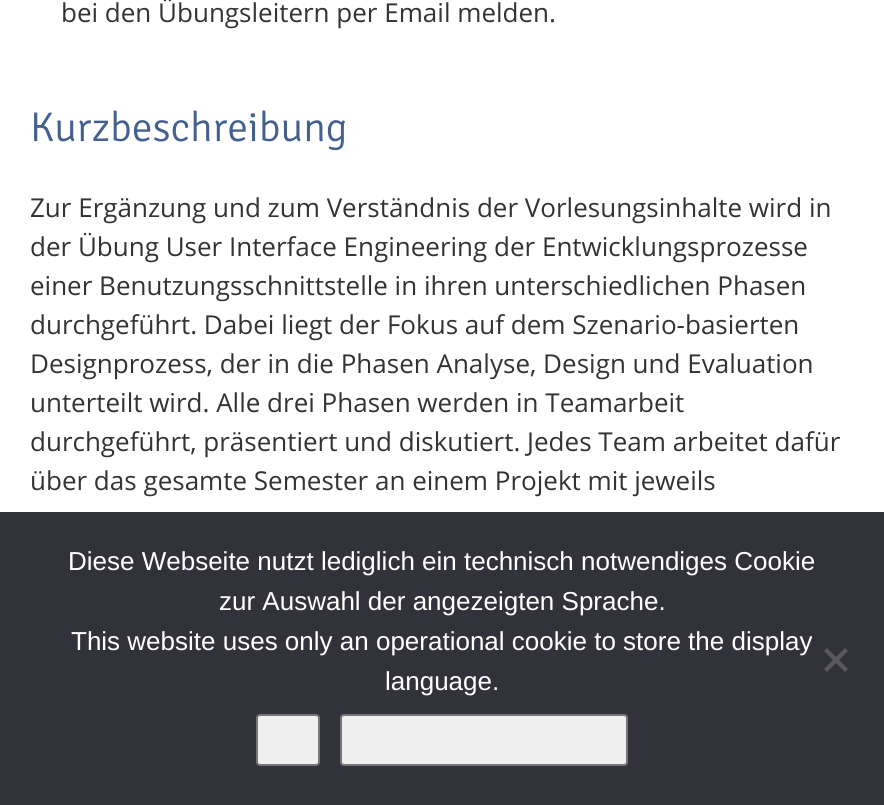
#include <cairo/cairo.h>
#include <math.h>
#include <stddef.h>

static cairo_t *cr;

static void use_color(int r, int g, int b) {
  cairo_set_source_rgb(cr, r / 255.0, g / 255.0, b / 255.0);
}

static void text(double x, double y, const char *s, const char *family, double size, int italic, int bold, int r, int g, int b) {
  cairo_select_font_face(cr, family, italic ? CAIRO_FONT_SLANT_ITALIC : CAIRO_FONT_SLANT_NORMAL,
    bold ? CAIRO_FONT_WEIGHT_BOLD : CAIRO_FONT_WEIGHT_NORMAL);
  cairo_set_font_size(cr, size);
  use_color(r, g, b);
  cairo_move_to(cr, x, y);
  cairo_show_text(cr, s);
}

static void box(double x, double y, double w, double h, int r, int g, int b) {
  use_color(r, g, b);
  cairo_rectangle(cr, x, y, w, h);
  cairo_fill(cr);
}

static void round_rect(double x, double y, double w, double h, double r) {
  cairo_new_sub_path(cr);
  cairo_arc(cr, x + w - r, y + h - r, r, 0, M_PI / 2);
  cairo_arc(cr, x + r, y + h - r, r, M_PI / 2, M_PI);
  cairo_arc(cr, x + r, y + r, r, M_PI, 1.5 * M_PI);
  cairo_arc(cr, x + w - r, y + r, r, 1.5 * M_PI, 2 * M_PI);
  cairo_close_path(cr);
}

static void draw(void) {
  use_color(255, 255, 255);
  cairo_paint(cr);
  box(0, 512, 884, 293, 50, 50, 58);
  use_color(89, 89, 93);
  cairo_new_path(cr);
  cairo_move_to(cr, 845, 648);
  cairo_line_to(cr, 848, 651);
  cairo_line_to(cr, 827, 672);
  cairo_line_to(cr, 824, 669);
  cairo_close_path(cr);
  cairo_fill(cr);
  cairo_new_path(cr);
  cairo_move_to(cr, 824, 651);
  cairo_line_to(cr, 827, 648);
  cairo_line_to(cr, 848, 669);
  cairo_line_to(cr, 845, 672);
  cairo_close_path(cr);
  cairo_fill(cr);
  use_color(239, 239, 239);
  round_rect(257, 715, 62, 50, 3);
  cairo_fill_preserve(cr);
  use_color(118, 118, 118);
  cairo_stroke(cr);
  use_color(239, 239, 239);
  round_rect(341, 715, 286, 50, 3);
  cairo_fill_preserve(cr);
  use_color(118, 118, 118);
  cairo_stroke(cr);
  text(61, 22, "bei den Übungsleitern per Email melden.", "Open Sans", 26, 0, 0, 51, 51, 51);
  text(30, 141, "Kurzbeschreibung", "Signika Light", 41.5, 0, 0, 68, 96, 144);
  text(30, 217, "Zur Ergänzung und zum Verständnis der Vorlesungsinhalte wird in", "Open Sans", 26, 0, 0, 51, 51, 51);
  text(30, 256, "der Übung User Interface Engineering der Entwicklungsprozesse", "Open Sans", 26, 0, 0, 51, 51, 51);
  text(30, 295, "einer Benutzungsschnittstelle in ihren unterschiedlichen Phasen", "Open Sans", 26, 0, 0, 51, 51, 51);
  text(30, 334, "durchgeführt. Dabei liegt der Fokus auf dem Szenario-basierten", "Open Sans", 26, 0, 0, 51, 51, 51);
  text(30, 373, "Designprozess, der in die Phasen Analyse, Design und Evaluation", "Open Sans", 26, 0, 0, 51, 51, 51);
  text(30, 412, "unterteilt wird. Alle drei Phasen werden in Teamarbeit", "Open Sans", 26, 0, 0, 51, 51, 51);
  text(30, 451, "durchgeführt, präsentiert und diskutiert. Jedes Team arbeitet dafür", "Open Sans", 26, 0, 0, 51, 51, 51);
  text(30, 490, "über das gesamte Semester an einem Projekt mit jeweils", "Open Sans", 26, 0, 0, 51, 51, 51);
  text(68, 570, "Diese Webseite nutzt lediglich ein technisch notwendiges Cookie", "Liberation Sans", 26, 0, 0, 255, 255, 255);
  text(219, 610, "zur Auswahl der angezeigten Sprache.", "Liberation Sans", 26, 0, 0, 255, 255, 255);
  text(71, 650, "This website uses only an operational cookie to store the display", "Liberation Sans", 26, 0, 0, 255, 255, 255);
  text(385, 690, "language.", "Liberation Sans", 26, 0, 0, 255, 255, 255);
}

int main(void) {
  cairo_surface_t *surface = cairo_image_surface_create(CAIRO_FORMAT_RGB24, 884, 805);
  cr = cairo_create(surface);
  cairo_font_options_t *options = cairo_font_options_create();
  cairo_font_options_set_hint_metrics(options, CAIRO_HINT_METRICS_OFF);
  cairo_font_options_set_hint_style(options, CAIRO_HINT_STYLE_NONE);
  cairo_set_font_options(cr, options);
  cairo_set_miter_limit(cr, 4);
  draw();
  cairo_surface_write_to_png(surface, "out.png");
  cairo_font_options_destroy(options);
  cairo_destroy(cr);
  cairo_surface_destroy(surface);
  return 0;
}
